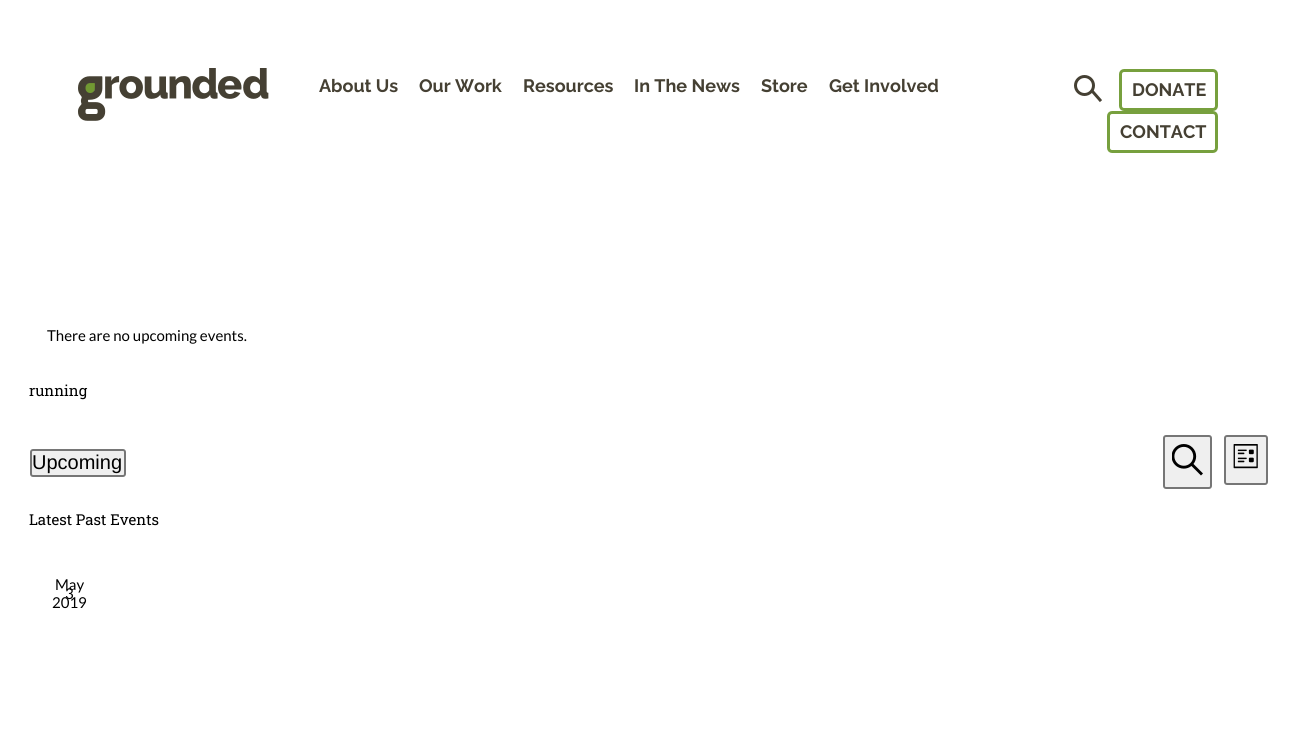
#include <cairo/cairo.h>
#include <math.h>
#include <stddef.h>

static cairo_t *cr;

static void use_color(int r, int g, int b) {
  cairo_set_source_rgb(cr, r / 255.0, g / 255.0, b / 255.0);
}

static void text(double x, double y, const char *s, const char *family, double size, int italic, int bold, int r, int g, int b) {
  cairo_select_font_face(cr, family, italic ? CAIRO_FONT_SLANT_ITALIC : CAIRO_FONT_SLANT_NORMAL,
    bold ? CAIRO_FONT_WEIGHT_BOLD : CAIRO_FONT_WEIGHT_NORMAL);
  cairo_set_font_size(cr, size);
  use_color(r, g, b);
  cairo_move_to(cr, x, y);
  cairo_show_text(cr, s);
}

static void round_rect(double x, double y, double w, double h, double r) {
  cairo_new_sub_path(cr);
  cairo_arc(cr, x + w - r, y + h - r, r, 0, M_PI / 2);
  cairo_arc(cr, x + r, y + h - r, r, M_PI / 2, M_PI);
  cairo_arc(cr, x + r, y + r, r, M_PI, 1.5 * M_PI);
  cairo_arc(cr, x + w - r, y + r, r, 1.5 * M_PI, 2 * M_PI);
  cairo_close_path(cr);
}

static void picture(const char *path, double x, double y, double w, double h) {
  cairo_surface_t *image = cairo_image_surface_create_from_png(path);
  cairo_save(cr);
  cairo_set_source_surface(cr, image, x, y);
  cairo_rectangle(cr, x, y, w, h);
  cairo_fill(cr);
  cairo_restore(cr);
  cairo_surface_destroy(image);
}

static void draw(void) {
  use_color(255, 255, 255);
  cairo_paint(cr);
  picture("img_01.png", 78, 68, 191, 53);
  cairo_arc(cr, 1084.5, 85.5, 9, 0, 2 * M_PI);
  use_color(69, 64, 51);
  cairo_set_line_width(cr, 3);
  cairo_stroke(cr);
  cairo_new_path(cr);
  cairo_move_to(cr, 1093, 92);
  cairo_line_to(cr, 1100, 100);
  cairo_set_line_cap(cr, CAIRO_LINE_CAP_SQUARE);
  cairo_stroke(cr);
  round_rect(1120.5, 70.5, 96, 39, 3.5);
  use_color(119, 160, 62);
  cairo_set_line_cap(cr, CAIRO_LINE_CAP_BUTT);
  cairo_stroke(cr);
  round_rect(1108.5, 112.5, 108, 39, 3.5);
  cairo_stroke(cr);
  use_color(239, 239, 239);
  round_rect(31, 450, 94, 26, 2);
  cairo_fill_preserve(cr);
  use_color(118, 118, 118);
  cairo_set_line_width(cr, 2);
  cairo_stroke(cr);
  use_color(239, 239, 239);
  round_rect(1164, 436, 47, 52, 2);
  cairo_fill_preserve(cr);
  use_color(118, 118, 118);
  cairo_stroke(cr);
  picture("img_02.png", 1172, 444, 31, 32);
  use_color(239, 239, 239);
  round_rect(1225, 436, 42, 48, 2);
  cairo_fill_preserve(cr);
  use_color(118, 118, 118);
  cairo_stroke(cr);
  picture("img_03.png", 1233, 444, 25, 25);
  text(319, 92, "About Us", "Raleway Thin", 18, 0, 0, 69, 64, 51);
  text(419, 92, "Our Work", "Raleway Thin", 18, 0, 0, 69, 64, 51);
  text(523, 92, "Resources", "Raleway Thin", 18, 0, 0, 69, 64, 51);
  text(634, 92, "In The News", "Raleway Thin", 18, 0, 0, 69, 64, 51);
  text(761, 92, "Store", "Raleway Thin", 18, 0, 0, 69, 64, 51);
  text(829, 92, "Get Involved", "Raleway Thin", 18, 0, 0, 69, 64, 51);
  text(1132, 96, "DONATE", "Raleway Thin", 18, 0, 0, 69, 64, 51);
  text(1120, 138, "CONTACT", "Raleway Thin", 18, 0, 0, 69, 64, 51);
  text(47, 341, "There are no upcoming events.", "Lato", 15, 0, 0, 0, 0, 0);
  text(29, 396, "running", "Roboto Slab", 15, 0, 0, 0, 0, 0);
  text(32, 469, "Upcoming", "Liberation Sans", 20, 0, 0, 0, 0, 0);
  text(29, 525, "Latest Past Events", "Roboto Slab", 15, 0, 0, 0, 0, 0);
  text(55, 590, "May", "Lato", 15, 0, 0, 0, 0, 0);
  text(65, 599, "3", "Lato", 15, 0, 0, 0, 0, 0);
  text(52, 608, "2019", "Lato", 15, 0, 0, 0, 0, 0);
}

int main(void) {
  cairo_surface_t *surface = cairo_image_surface_create(CAIRO_FORMAT_RGB24, 1296, 754);
  cr = cairo_create(surface);
  cairo_font_options_t *options = cairo_font_options_create();
  cairo_font_options_set_hint_metrics(options, CAIRO_HINT_METRICS_OFF);
  cairo_font_options_set_hint_style(options, CAIRO_HINT_STYLE_NONE);
  cairo_set_font_options(cr, options);
  cairo_set_miter_limit(cr, 4);
  draw();
  cairo_surface_write_to_png(surface, "out.png");
  cairo_font_options_destroy(options);
  cairo_destroy(cr);
  cairo_surface_destroy(surface);
  return 0;
}
